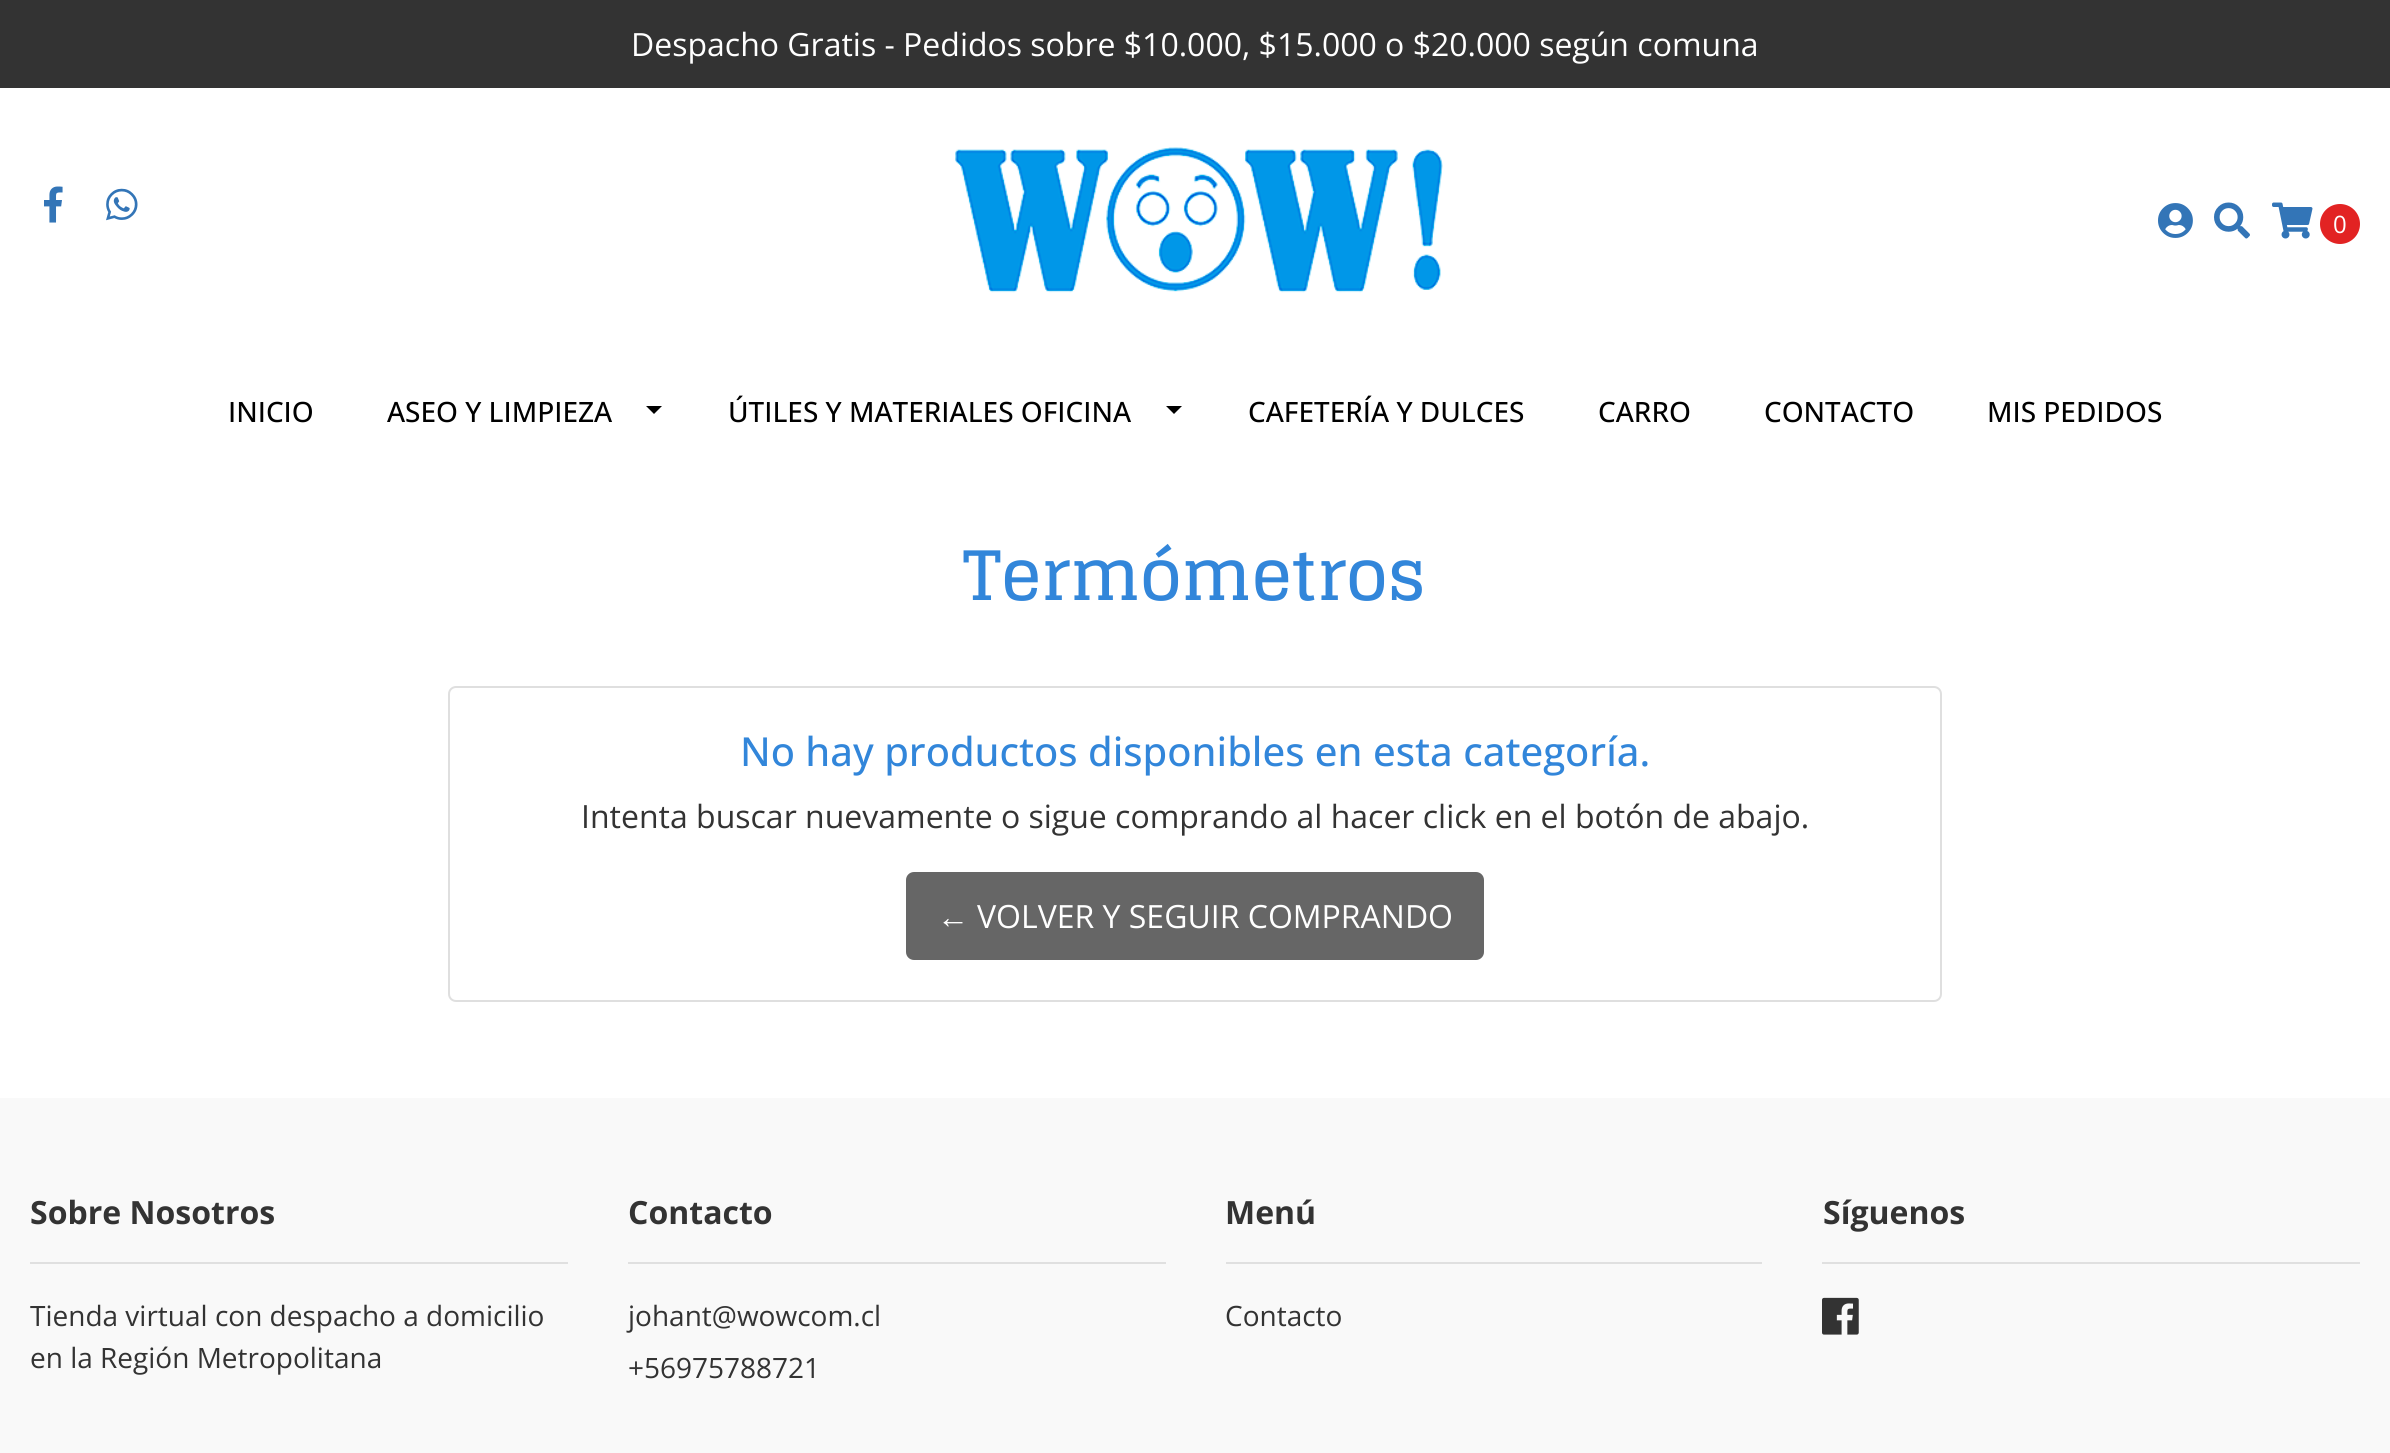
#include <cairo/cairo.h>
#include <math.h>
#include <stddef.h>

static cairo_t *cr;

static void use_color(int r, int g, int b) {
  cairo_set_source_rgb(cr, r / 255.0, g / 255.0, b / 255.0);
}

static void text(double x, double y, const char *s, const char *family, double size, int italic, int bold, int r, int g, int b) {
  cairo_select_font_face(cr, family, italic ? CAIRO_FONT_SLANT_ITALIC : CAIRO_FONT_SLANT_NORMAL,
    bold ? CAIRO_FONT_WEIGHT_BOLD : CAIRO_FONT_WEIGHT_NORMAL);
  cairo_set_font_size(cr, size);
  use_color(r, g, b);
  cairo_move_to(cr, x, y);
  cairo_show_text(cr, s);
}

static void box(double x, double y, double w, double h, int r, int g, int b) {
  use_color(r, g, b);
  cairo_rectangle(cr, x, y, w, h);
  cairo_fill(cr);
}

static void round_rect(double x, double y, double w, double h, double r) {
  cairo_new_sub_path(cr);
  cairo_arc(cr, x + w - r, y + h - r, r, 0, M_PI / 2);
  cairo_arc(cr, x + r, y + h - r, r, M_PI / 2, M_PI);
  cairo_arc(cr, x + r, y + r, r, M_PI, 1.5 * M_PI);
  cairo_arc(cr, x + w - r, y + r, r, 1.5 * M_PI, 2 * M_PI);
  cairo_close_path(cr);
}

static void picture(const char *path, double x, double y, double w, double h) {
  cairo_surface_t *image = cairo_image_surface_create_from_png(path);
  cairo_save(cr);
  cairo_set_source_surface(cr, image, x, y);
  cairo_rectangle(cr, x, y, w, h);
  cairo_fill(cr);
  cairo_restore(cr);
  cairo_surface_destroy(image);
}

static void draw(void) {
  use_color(255, 255, 255);
  cairo_paint(cr);
  box(0, 0, 2390, 88, 51, 51, 51);
  picture("img_01.png", 44, 186, 19, 37);
  picture("img_02.png", 106, 188, 32, 33);
  picture("img_03.png", 955, 147, 488, 146);
  picture("img_04.png", 2158, 203, 35, 35);
  picture("img_05.png", 2214, 202, 36, 37);
  picture("img_06.png", 2272, 202, 41, 37);
  use_color(226, 35, 35);
  cairo_arc(cr, 2340, 224, 20, 0, 2 * M_PI);
  cairo_fill(cr);
  use_color(0, 0, 0);
  cairo_new_path(cr);
  cairo_move_to(cr, 646, 406);
  cairo_line_to(cr, 662, 406);
  cairo_line_to(cr, 654, 414);
  cairo_close_path(cr);
  cairo_fill(cr);
  cairo_new_path(cr);
  cairo_move_to(cr, 1166, 406);
  cairo_line_to(cr, 1182, 406);
  cairo_line_to(cr, 1174, 414);
  cairo_close_path(cr);
  cairo_fill(cr);
  round_rect(449, 687, 1492, 314, 7);
  use_color(223, 223, 223);
  cairo_stroke(cr);
  use_color(102, 102, 102);
  round_rect(906, 872, 578, 88, 8);
  cairo_fill(cr);
  box(0, 1098, 2390, 355, 249, 249, 249);
  box(30, 1262, 538, 2, 224, 224, 224);
  box(628, 1262, 538, 2, 224, 224, 224);
  box(1226, 1262, 536, 2, 224, 224, 224);
  box(1822, 1262, 538, 2, 224, 224, 224);
  picture("img_07.png", 1822, 1297, 37, 38);
  text(631, 56, "Despacho Gratis - Pedidos sobre $10.000, $15.000 o $20.000 según comuna", "Open Sans", 32, 0, 0, 255, 255, 255);
  text(2333, 233, "0", "Open Sans", 24, 0, 0, 255, 255, 255);
  text(228, 422, "INICIO", "Open Sans Medium", 28, 0, 0, 0, 0, 0);
  text(387, 422, "ASEO Y LIMPIEZA", "Open Sans Medium", 28, 0, 0, 0, 0, 0);
  text(728, 422, "ÚTILES Y MATERIALES OFICINA", "Open Sans Medium", 28, 0, 0, 0, 0, 0);
  text(1248, 422, "CAFETERÍA Y DULCES", "Open Sans Medium", 28, 0, 0, 0, 0, 0);
  text(1598, 422, "CARRO", "Open Sans Medium", 28, 0, 0, 0, 0, 0);
  text(1764, 422, "CONTACTO", "Open Sans Medium", 28, 0, 0, 0, 0, 0);
  text(1987, 422, "MIS PEDIDOS", "Open Sans Medium", 28, 0, 0, 0, 0, 0);
  text(963, 600, "Termómetros", "Glegoo", 68, 0, 1, 50, 134, 218);
  text(740, 766, "No hay productos disponibles en esta categoría.", "Open Sans Medium", 40, 0, 0, 50, 134, 218);
  text(581, 828, "Intenta buscar nuevamente o sigue comprando al hacer click en el botón de abajo.", "Open Sans", 32, 0, 0, 51, 51, 51);
  text(937, 928, "←", "Liberation Serif", 32, 0, 0, 255, 255, 255);
  text(977, 928, "VOLVER Y SEGUIR COMPRANDO", "Open Sans", 32, 0, 0, 255, 255, 255);
  text(30, 1224, "Sobre Nosotros", "Open Sans", 32, 0, 1, 51, 51, 51);
  text(30, 1326, "Tienda virtual con despacho a domicilio", "Open Sans", 28, 0, 0, 51, 51, 51);
  text(30, 1368, "en la Región Metropolitana", "Open Sans", 28, 0, 0, 51, 51, 51);
  text(628, 1224, "Contacto", "Open Sans", 32, 0, 1, 51, 51, 51);
  text(628, 1326, "johant@wowcom.cl", "Open Sans", 28, 0, 0, 51, 51, 51);
  text(628, 1378, "+56975788721", "Open Sans", 28, 0, 0, 51, 51, 51);
  text(1225, 1224, "Menú", "Open Sans", 32, 0, 1, 51, 51, 51);
  text(1225, 1326, "Contacto", "Open Sans", 28, 0, 0, 51, 51, 51);
  text(1823, 1224, "Síguenos", "Open Sans", 32, 0, 1, 51, 51, 51);
}

int main(void) {
  cairo_surface_t *surface = cairo_image_surface_create(CAIRO_FORMAT_RGB24, 2390, 1453);
  cr = cairo_create(surface);
  cairo_font_options_t *options = cairo_font_options_create();
  cairo_font_options_set_hint_metrics(options, CAIRO_HINT_METRICS_OFF);
  cairo_font_options_set_hint_style(options, CAIRO_HINT_STYLE_NONE);
  cairo_set_font_options(cr, options);
  cairo_set_miter_limit(cr, 4);
  draw();
  cairo_surface_write_to_png(surface, "out.png");
  cairo_font_options_destroy(options);
  cairo_destroy(cr);
  cairo_surface_destroy(surface);
  return 0;
}
